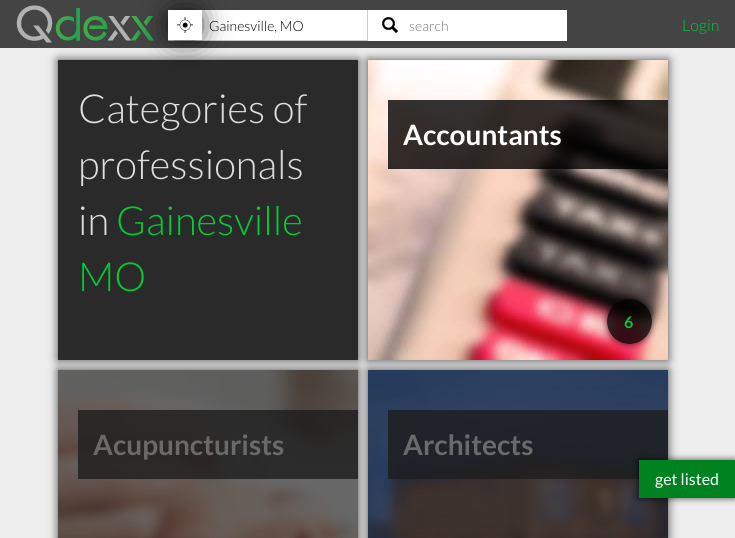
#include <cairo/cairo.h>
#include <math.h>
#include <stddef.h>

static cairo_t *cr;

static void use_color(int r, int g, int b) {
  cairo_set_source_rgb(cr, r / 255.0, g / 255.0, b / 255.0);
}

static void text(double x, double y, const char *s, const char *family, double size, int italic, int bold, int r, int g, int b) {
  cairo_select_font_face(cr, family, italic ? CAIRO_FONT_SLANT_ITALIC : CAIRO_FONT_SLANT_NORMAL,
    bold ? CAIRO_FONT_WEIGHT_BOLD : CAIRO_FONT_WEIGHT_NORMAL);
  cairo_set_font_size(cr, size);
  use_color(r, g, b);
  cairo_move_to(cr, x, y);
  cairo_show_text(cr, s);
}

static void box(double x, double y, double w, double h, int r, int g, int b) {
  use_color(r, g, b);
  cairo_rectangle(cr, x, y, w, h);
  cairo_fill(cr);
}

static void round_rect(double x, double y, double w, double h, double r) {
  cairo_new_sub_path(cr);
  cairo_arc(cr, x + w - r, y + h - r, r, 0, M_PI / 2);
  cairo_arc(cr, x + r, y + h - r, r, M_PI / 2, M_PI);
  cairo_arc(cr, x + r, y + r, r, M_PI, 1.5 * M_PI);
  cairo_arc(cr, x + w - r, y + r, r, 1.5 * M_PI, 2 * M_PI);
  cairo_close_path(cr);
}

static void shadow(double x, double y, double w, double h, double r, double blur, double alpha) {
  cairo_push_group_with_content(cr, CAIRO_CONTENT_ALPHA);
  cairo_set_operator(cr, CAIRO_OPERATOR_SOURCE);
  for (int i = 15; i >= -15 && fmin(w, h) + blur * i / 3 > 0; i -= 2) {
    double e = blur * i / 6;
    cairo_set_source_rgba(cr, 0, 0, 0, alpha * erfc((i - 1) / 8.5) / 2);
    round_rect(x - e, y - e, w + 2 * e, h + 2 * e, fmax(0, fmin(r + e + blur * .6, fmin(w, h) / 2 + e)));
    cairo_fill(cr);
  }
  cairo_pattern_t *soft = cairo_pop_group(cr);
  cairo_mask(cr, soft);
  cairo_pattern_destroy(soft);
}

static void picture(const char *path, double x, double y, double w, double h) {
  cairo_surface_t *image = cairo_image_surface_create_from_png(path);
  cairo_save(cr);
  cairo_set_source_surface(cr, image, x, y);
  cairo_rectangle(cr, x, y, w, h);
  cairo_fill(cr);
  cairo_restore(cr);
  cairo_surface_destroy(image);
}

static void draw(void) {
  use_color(238, 238, 238);
  cairo_paint(cr);
  use_color(0, 0, 0);
  shadow(58, 60, 300, 300, 0, 5, 0.7);
  box(58, 60, 300, 300, 42, 42, 42);
  use_color(0, 0, 0);
  shadow(368, 60, 300, 300, 0, 5, 0.7);
  box(0, 0, 735, 48, 68, 68, 68);
  picture("img_01.png", 16, 5, 138, 38);
  box(368, 10, 199, 31, 255, 255, 255);
  box(367, 10, 1, 31, 204, 204, 204);
  box(168, 40, 200, 1, 204, 204, 204);
  box(168, 10, 199, 30, 255, 255, 255);
  cairo_save(cr);
  cairo_set_fill_rule(cr, CAIRO_FILL_RULE_EVEN_ODD);
  cairo_new_path(cr);
  cairo_move_to(cr, 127, 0);
  cairo_line_to(cr, 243, 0);
  cairo_line_to(cr, 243, 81);
  cairo_line_to(cr, 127, 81);
  cairo_close_path(cr);
  cairo_move_to(cr, 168, 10);
  cairo_line_to(cr, 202, 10);
  cairo_line_to(cr, 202, 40);
  cairo_line_to(cr, 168, 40);
  cairo_close_path(cr);
  cairo_clip(cr);
  use_color(0, 0, 0);
  shadow(173, 15, 24, 20, 0, 15, 1);
  cairo_restore(cr);
  picture("img_02.png", 177, 17, 16, 16);
  picture("img_03.png", 382, 17, 16, 16);
  picture("img_04.png", 368, 60, 300, 300);
  cairo_set_source_rgba(cr, 0, 0, 0, 0.8);
  cairo_rectangle(cr, 388, 100, 280, 69);
  cairo_fill(cr);
  cairo_save(cr);
  cairo_set_fill_rule(cr, CAIRO_FILL_RULE_EVEN_ODD);
  cairo_new_path(cr);
  cairo_move_to(cr, 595, 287);
  cairo_line_to(cr, 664, 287);
  cairo_line_to(cr, 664, 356);
  cairo_line_to(cr, 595, 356);
  cairo_close_path(cr);
  cairo_move_to(cr, 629.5, 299);
  cairo_curve_to(cr, 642, 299, 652, 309, 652, 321.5);
  cairo_curve_to(cr, 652, 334, 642, 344, 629.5, 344);
  cairo_curve_to(cr, 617, 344, 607, 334, 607, 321.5);
  cairo_curve_to(cr, 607, 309, 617, 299, 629.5, 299);
  cairo_close_path(cr);
  cairo_clip(cr);
  use_color(0, 0, 0);
  shadow(607, 299, 45, 45, 22.5, 3.5, 0.7);
  cairo_restore(cr);
  cairo_arc(cr, 629.5, 321.5, 22.5, 0, 2 * M_PI);
  cairo_fill(cr);
  use_color(0, 0, 0);
  shadow(58, 370, 300, 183, 0, 5, 0.7);
  box(58, 370, 300, 168, 42, 42, 42);
  picture("img_05.png", 58, 370, 300, 168);
  cairo_set_source_rgba(cr, 0.114, 0.114, 0.114, 0.8);
  cairo_rectangle(cr, 78, 410, 280, 69);
  cairo_fill(cr);
  use_color(0, 0, 0);
  shadow(368, 370, 300, 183, 0, 5, 0.7);
  box(368, 370, 300, 168, 42, 42, 42);
  picture("img_06.png", 368, 370, 300, 168);
  cairo_set_source_rgba(cr, 0.114, 0.114, 0.114, 0.8);
  cairo_rectangle(cr, 388, 410, 280, 69);
  cairo_fill(cr);
  use_color(0, 0, 0);
  shadow(639, 460, 96, 38, 0, 3.5, 0.7);
  box(639, 460, 96, 38, 0, 130, 33);
  text(209, 31, "Gainesville, MO", "Lato Light", 14, 0, 0, 0, 0, 0);
  text(409, 31, "search", "Lato Light", 14, 0, 0, 117, 117, 117);
  text(682, 31, "Login", "Lato Light", 16, 0, 0, 0, 204, 51);
  text(78, 123, "Categories of", "Lato Light", 40, 0, 0, 221, 221, 221);
  text(78, 179, "professionals", "Lato Light", 40, 0, 0, 221, 221, 221);
  text(78, 235, "in", "Lato Light", 40, 0, 0, 221, 221, 221);
  text(116, 235, "Gainesville", "Lato Light", 40, 0, 0, 0, 204, 51);
  text(78, 291, "MO", "Lato Light", 40, 0, 0, 0, 204, 51);
  text(403, 145, "Accountants", "Lato", 28, 0, 1, 255, 255, 255);
  text(624, 328, "6", "Lato", 16, 0, 1, 0, 204, 51);
  text(93, 455, "Acupuncturists", "Lato", 28, 0, 1, 106, 106, 106);
  text(403, 455, "Architects", "Lato", 28, 0, 1, 106, 106, 106);
  text(655, 485, "get listed", "Lato", 16, 0, 0, 255, 255, 255);
}

int main(void) {
  cairo_surface_t *surface = cairo_image_surface_create(CAIRO_FORMAT_RGB24, 735, 538);
  cr = cairo_create(surface);
  cairo_font_options_t *options = cairo_font_options_create();
  cairo_font_options_set_hint_metrics(options, CAIRO_HINT_METRICS_OFF);
  cairo_font_options_set_hint_style(options, CAIRO_HINT_STYLE_NONE);
  cairo_set_font_options(cr, options);
  cairo_set_miter_limit(cr, 4);
  draw();
  cairo_surface_write_to_png(surface, "out.png");
  cairo_font_options_destroy(options);
  cairo_destroy(cr);
  cairo_surface_destroy(surface);
  return 0;
}
